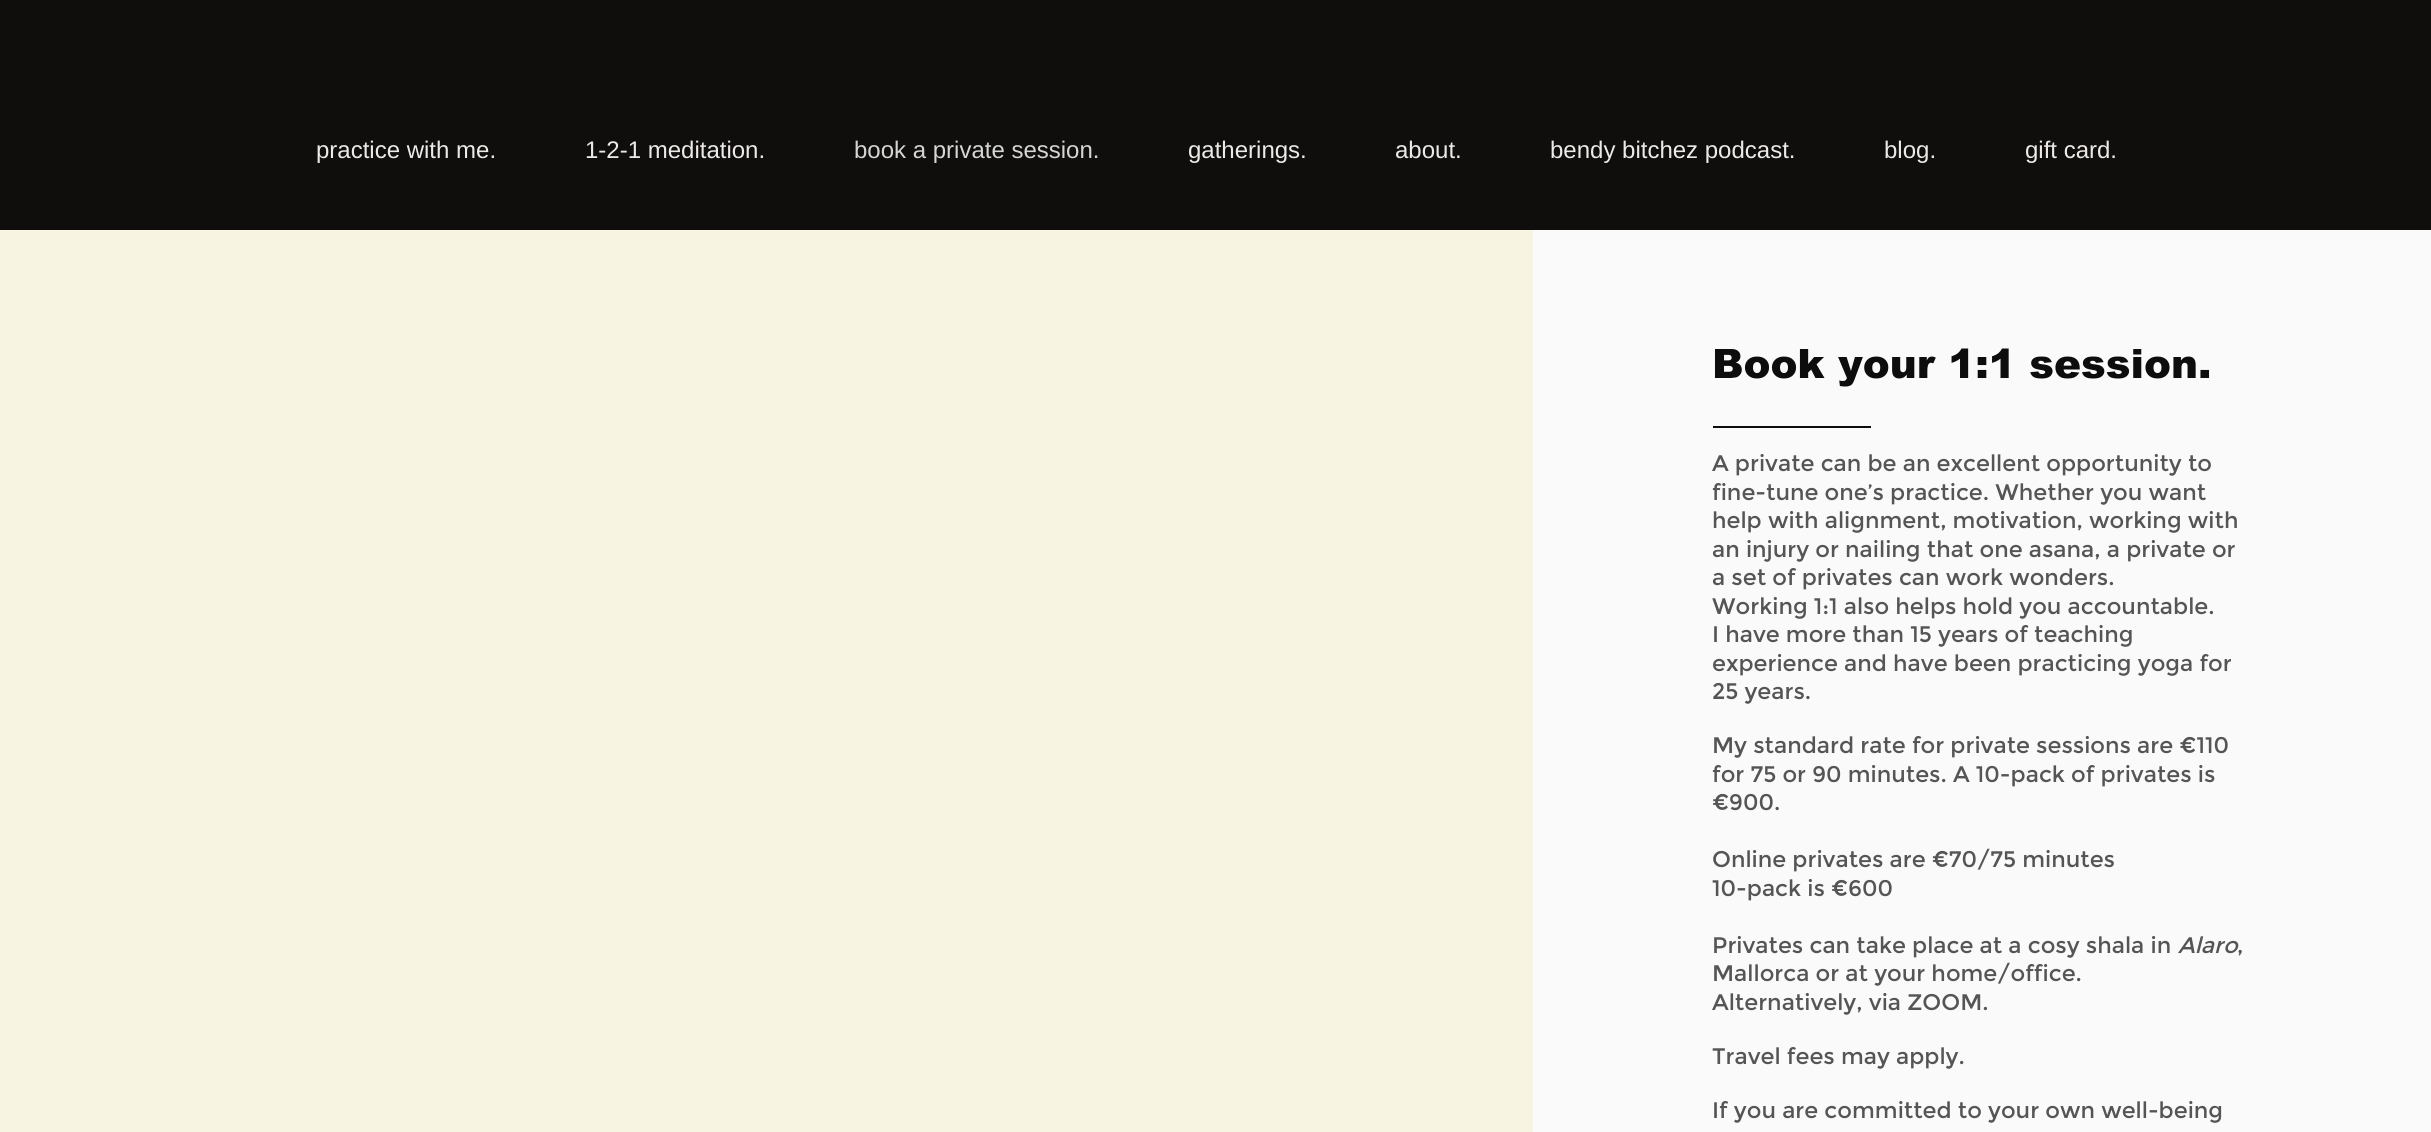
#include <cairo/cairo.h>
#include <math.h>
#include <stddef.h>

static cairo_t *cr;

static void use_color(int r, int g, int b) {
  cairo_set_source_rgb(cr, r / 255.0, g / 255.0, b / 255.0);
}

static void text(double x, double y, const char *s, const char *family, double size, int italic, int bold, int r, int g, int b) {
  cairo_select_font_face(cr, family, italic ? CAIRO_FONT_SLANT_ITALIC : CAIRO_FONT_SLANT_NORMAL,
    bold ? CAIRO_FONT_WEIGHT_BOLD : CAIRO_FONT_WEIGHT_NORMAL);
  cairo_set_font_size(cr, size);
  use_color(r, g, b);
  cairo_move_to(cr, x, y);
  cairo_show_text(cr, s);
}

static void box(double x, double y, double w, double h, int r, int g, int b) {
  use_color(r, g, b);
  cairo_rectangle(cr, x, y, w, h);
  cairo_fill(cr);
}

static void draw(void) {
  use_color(15, 14, 13);
  cairo_paint(cr);
  box(0, 230, 1533, 902, 247, 245, 225);
  box(1533, 230, 898, 902, 250, 250, 250);
  box(1713, 426, 158, 2, 15, 14, 13);
  text(316, 158, "practice with me.", "Liberation Sans", 24, 0, 0, 237, 233, 230);
  text(585, 158, "1-2-1 meditation.", "Liberation Sans", 24, 0, 0, 237, 233, 230);
  text(854, 158, "book a private session.", "Liberation Sans", 24, 0, 0, 213, 213, 213);
  text(1188, 158, "gatherings.", "Liberation Sans", 24, 0, 0, 237, 233, 230);
  text(1395, 158, "about.", "Liberation Sans", 24, 0, 0, 237, 233, 230);
  text(1550, 158, "bendy bitchez podcast.", "Liberation Sans", 24, 0, 0, 237, 233, 230);
  text(1884, 158, "blog.", "Liberation Sans", 24, 0, 0, 237, 233, 230);
  text(2025, 158, "gift card.", "Liberation Sans", 24, 0, 0, 237, 233, 230);
  text(1712, 378, "Book your 1:1 session.", "arial Black", 40.5, 0, 0, 13, 13, 13);
  text(1712, 471, "A private can be an excellent opportunity to", "Montserrat", 22.5, 0, 0, 85, 85, 85);
  text(1712, 500, "fine-tune one’s practice. Whether you want", "Montserrat", 22.5, 0, 0, 85, 85, 85);
  text(1712, 528, "help with alignment, motivation, working with", "Montserrat", 22.5, 0, 0, 85, 85, 85);
  text(1712, 557, "an injury or nailing that one asana, a private or", "Montserrat", 22.5, 0, 0, 85, 85, 85);
  text(1712, 585, "a set of privates can work wonders.", "Montserrat", 22.5, 0, 0, 85, 85, 85);
  text(1712, 614, "Working 1:1 also helps hold you accountable.", "Montserrat", 22.5, 0, 0, 85, 85, 85);
  text(1712, 642, "I have more than 15 years of teaching", "Montserrat", 22.5, 0, 0, 85, 85, 85);
  text(1712, 671, "experience and have been practicing yoga for", "Montserrat", 22.5, 0, 0, 85, 85, 85);
  text(1712, 699, "25 years.", "Montserrat", 22.5, 0, 0, 85, 85, 85);
  text(1712, 753, "My standard rate for private sessions are €110", "Montserrat", 22.5, 0, 0, 85, 85, 85);
  text(1712, 782, "for 75 or 90 minutes. A 10-pack of privates is", "Montserrat", 22.5, 0, 0, 85, 85, 85);
  text(1712, 810, "€900.", "Montserrat", 22.5, 0, 0, 85, 85, 85);
  text(1712, 867, "Online privates are €70/75 minutes", "Montserrat", 22.5, 0, 0, 85, 85, 85);
  text(1712, 896, "10-pack is €600", "Montserrat", 22.5, 0, 0, 85, 85, 85);
  text(1712, 953, "Privates can take place at a cosy shala in", "Montserrat", 22.5, 0, 0, 85, 85, 85);
  text(2178, 953, "Alaro", "Montserrat", 22.5, 1, 0, 85, 85, 85);
  text(2237, 953, ",", "Montserrat", 22.5, 0, 0, 85, 85, 85);
  text(1712, 981, "Mallorca or at your home/office.", "Montserrat", 22.5, 0, 0, 85, 85, 85);
  text(1712, 1010, "Alternatively, via ZOOM.", "Montserrat", 22.5, 0, 0, 85, 85, 85);
  text(1712, 1064, "Travel fees may apply.", "Montserrat", 22.5, 0, 0, 85, 85, 85);
  text(1712, 1118, "If you are committed to your own well-being", "Montserrat", 22.5, 0, 0, 85, 85, 85);
}

int main(void) {
  cairo_surface_t *surface = cairo_image_surface_create(CAIRO_FORMAT_RGB24, 2431, 1132);
  cr = cairo_create(surface);
  cairo_font_options_t *options = cairo_font_options_create();
  cairo_font_options_set_hint_metrics(options, CAIRO_HINT_METRICS_OFF);
  cairo_font_options_set_hint_style(options, CAIRO_HINT_STYLE_NONE);
  cairo_set_font_options(cr, options);
  cairo_set_miter_limit(cr, 4);
  draw();
  cairo_surface_write_to_png(surface, "out.png");
  cairo_font_options_destroy(options);
  cairo_destroy(cr);
  cairo_surface_destroy(surface);
  return 0;
}
